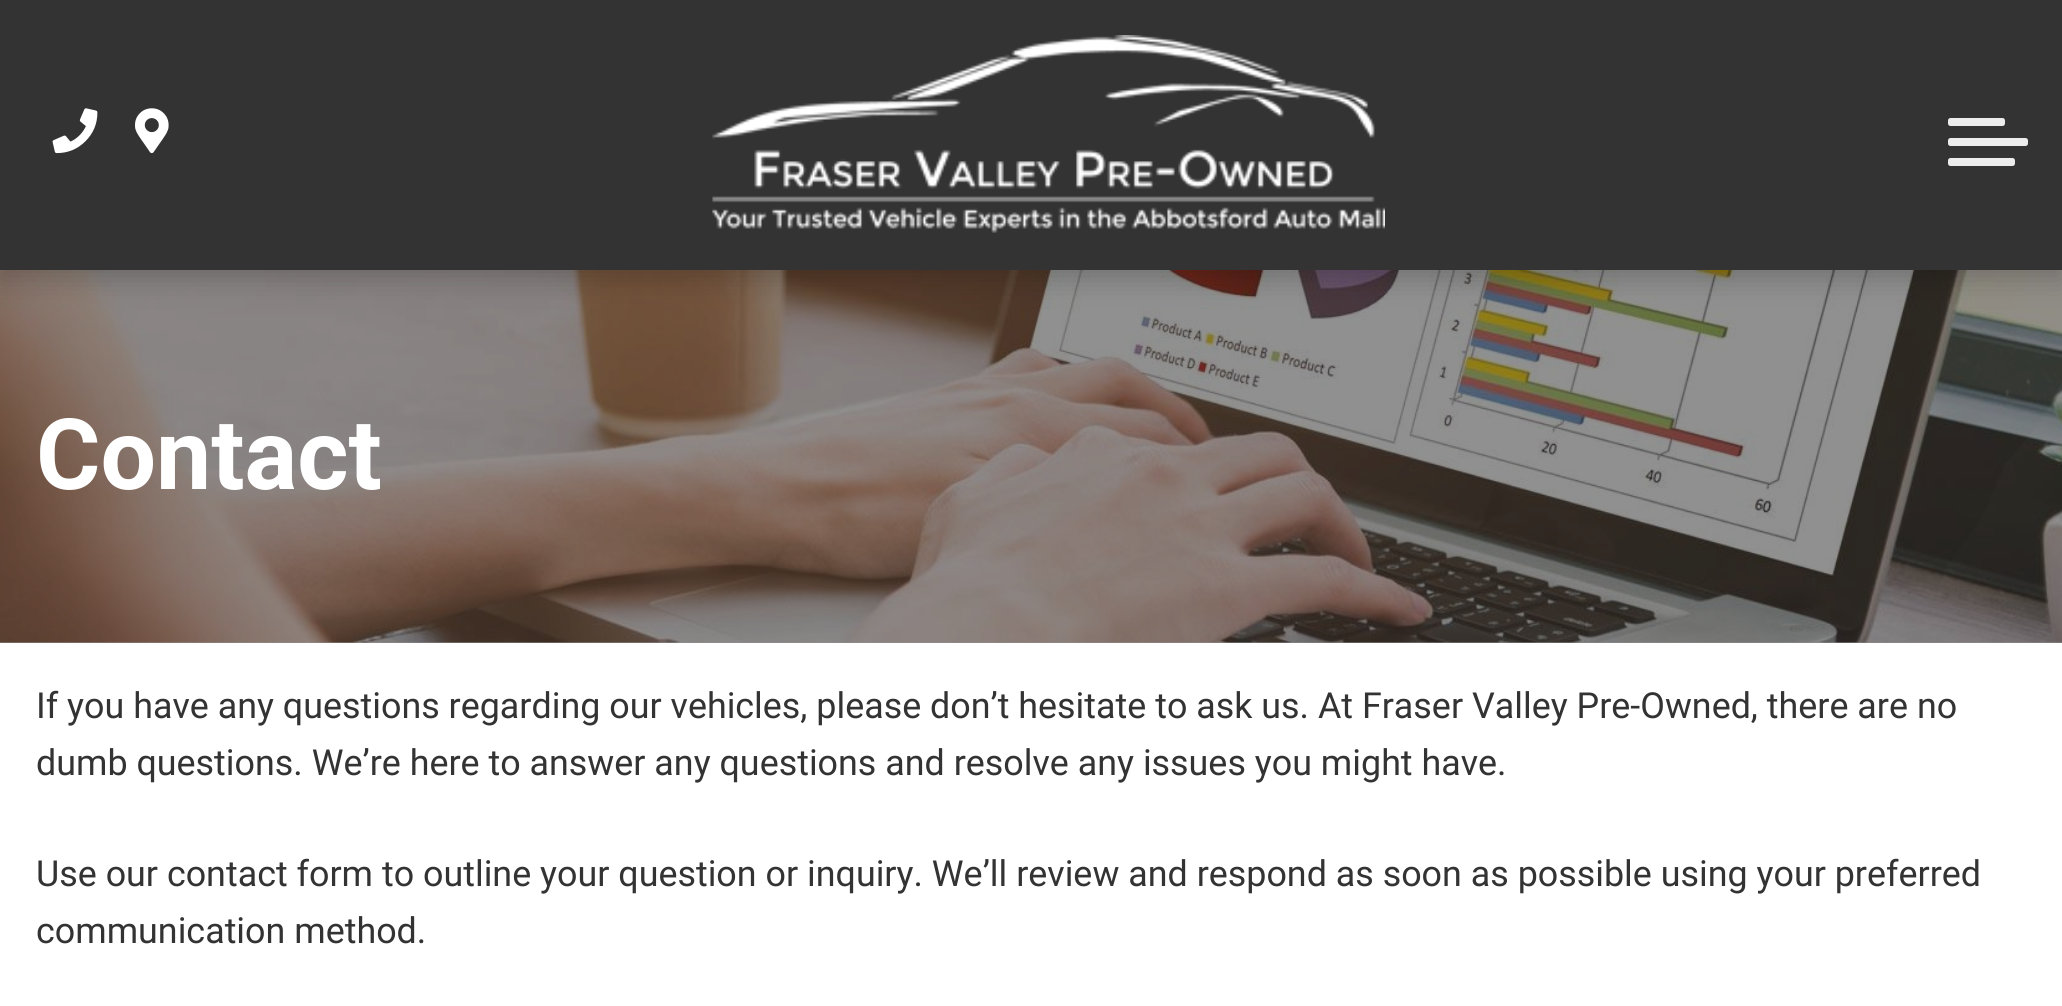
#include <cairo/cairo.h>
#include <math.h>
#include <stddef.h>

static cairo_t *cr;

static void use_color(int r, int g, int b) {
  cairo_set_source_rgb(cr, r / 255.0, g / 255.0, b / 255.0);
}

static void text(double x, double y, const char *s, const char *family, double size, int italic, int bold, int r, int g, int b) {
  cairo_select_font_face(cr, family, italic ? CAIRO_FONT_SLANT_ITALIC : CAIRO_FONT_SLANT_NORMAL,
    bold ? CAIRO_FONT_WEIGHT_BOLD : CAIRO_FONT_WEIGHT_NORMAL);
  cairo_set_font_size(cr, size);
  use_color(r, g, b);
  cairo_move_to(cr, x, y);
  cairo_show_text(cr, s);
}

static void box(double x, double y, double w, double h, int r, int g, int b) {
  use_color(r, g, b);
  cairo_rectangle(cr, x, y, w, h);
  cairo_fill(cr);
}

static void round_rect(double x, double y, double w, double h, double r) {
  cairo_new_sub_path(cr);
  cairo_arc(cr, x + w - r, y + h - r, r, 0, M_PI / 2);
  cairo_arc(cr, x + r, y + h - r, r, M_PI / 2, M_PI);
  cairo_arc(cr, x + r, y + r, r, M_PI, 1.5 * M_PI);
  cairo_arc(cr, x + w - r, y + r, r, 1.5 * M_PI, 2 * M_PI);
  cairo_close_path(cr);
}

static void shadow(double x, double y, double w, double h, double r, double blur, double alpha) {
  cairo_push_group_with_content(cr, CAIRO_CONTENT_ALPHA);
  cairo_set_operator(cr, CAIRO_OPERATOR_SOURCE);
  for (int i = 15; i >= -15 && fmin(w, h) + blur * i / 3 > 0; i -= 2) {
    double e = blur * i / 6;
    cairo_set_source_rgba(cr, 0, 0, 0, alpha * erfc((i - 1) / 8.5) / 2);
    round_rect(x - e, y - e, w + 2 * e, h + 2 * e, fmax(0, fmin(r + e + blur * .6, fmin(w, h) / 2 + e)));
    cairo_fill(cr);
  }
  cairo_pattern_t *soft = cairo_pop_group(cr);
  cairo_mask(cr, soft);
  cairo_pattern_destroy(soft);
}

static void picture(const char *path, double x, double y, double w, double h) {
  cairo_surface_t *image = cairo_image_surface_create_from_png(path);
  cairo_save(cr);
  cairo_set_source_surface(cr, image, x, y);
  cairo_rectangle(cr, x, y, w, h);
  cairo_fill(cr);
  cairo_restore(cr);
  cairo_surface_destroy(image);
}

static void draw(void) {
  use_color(255, 255, 255);
  cairo_paint(cr);
  box(0, 642, 2062, 1, 145, 145, 145);
  picture("img_04.png", 0, 270, 2062, 373);
  use_color(0, 0, 0);
  shadow(0, 10, 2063, 270, 0, 13.5, 0.2);
  box(0, 0, 2062, 270, 51, 51, 51);
  picture("img_01.png", 52, 108, 46, 46);
  picture("img_02.png", 135, 108, 34, 46);
  picture("img_03.png", 712, 35, 673, 198);
  use_color(236, 236, 236);
  round_rect(1948, 138, 80, 8, 2.5);
  cairo_fill(cr);
  round_rect(1948, 118, 57, 8, 2.5);
  cairo_fill(cr);
  round_rect(1948, 158, 67, 8, 2.5);
  cairo_fill(cr);
  text(36, 489, "Contact", "Roboto", 98.5, 0, 1, 255, 255, 255);
  text(36, 718, "If you have any questions regarding our vehicles, please don’t hesitate to ask us. At Fraser Valley Pre-Owned, there are no", "Roboto", 35.85, 0, 0, 51, 51, 51);
  text(36, 775, "dumb questions. We’re here to answer any questions and resolve any issues you might have.", "Roboto", 35.85, 0, 0, 51, 51, 51);
  text(36, 886, "Use our contact form to outline your question or inquiry. We’ll review and respond as soon as possible using your preferred", "Roboto", 35.85, 0, 0, 51, 51, 51);
  text(36, 943, "communication method.", "Roboto", 35.85, 0, 0, 51, 51, 51);
}

int main(void) {
  cairo_surface_t *surface = cairo_image_surface_create(CAIRO_FORMAT_RGB24, 2062, 1006);
  cr = cairo_create(surface);
  cairo_font_options_t *options = cairo_font_options_create();
  cairo_font_options_set_hint_metrics(options, CAIRO_HINT_METRICS_OFF);
  cairo_font_options_set_hint_style(options, CAIRO_HINT_STYLE_NONE);
  cairo_set_font_options(cr, options);
  cairo_set_miter_limit(cr, 4);
  draw();
  cairo_surface_write_to_png(surface, "out.png");
  cairo_font_options_destroy(options);
  cairo_destroy(cr);
  cairo_surface_destroy(surface);
  return 0;
}
